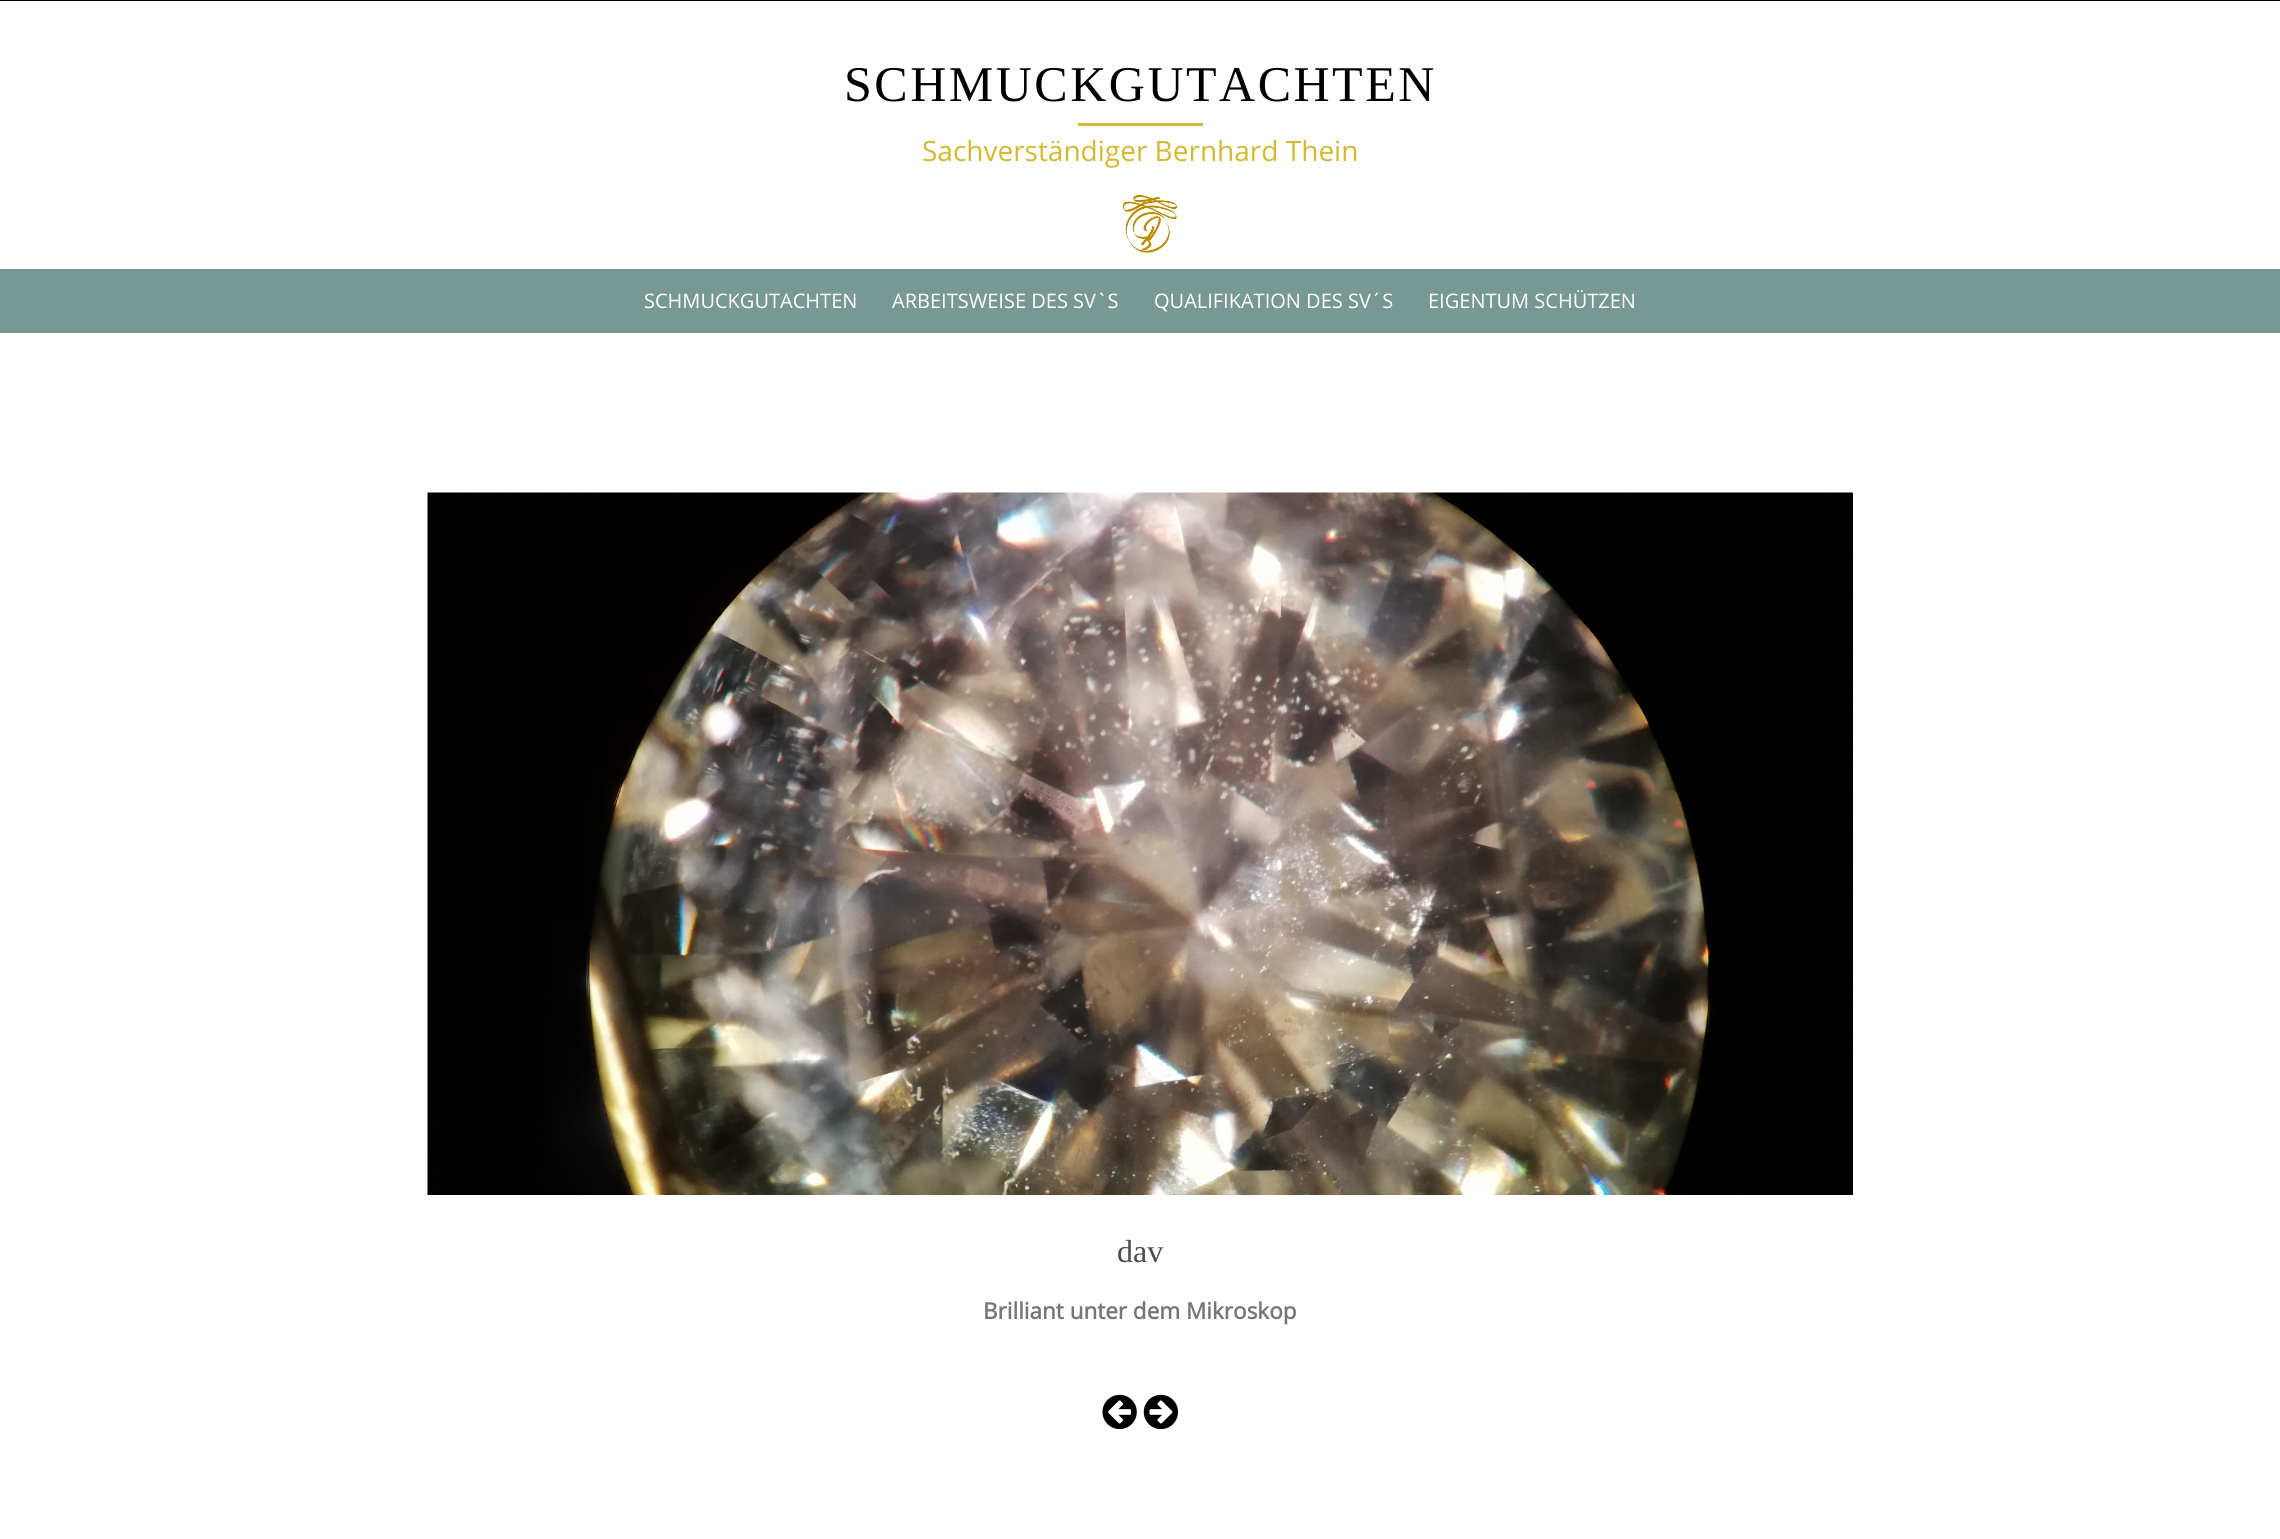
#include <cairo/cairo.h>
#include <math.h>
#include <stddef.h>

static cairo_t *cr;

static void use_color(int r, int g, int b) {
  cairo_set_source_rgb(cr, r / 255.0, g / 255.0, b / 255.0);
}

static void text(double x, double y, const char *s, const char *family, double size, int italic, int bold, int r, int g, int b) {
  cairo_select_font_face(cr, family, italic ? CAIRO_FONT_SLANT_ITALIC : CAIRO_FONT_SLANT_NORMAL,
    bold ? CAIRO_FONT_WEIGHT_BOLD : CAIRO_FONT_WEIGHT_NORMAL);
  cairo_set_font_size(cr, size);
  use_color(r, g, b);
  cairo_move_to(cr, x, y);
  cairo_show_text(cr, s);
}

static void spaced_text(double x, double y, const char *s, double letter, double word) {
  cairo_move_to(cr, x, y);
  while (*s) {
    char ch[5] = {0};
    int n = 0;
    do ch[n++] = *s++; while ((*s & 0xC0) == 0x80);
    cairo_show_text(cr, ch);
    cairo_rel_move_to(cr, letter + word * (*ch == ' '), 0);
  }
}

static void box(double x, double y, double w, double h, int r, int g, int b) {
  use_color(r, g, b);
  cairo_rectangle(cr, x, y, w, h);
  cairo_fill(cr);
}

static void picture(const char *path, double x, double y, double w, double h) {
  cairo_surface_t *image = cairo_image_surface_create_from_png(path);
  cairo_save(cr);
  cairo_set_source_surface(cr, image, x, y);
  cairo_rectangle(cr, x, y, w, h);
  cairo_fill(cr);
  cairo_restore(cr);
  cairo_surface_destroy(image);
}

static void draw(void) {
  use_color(0, 0, 0);
  cairo_paint(cr);
  box(0, 1, 2280, 268, 255, 255, 255);
  picture("img_01.png", 1118, 194, 61, 61);
  box(1078, 123, 125, 3, 211, 184, 48);
  box(0, 269, 2280, 64, 120, 153, 147);
  box(0, 333, 2280, 1206, 255, 255, 255);
  box(1852, 493, 1, 702, 8, 13, 7);
  picture("img_02.png", 427, 492, 1426, 703);
  picture("img_03.png", 1102, 1394, 35, 36);
  picture("img_04.png", 1143, 1394, 35, 36);
  cairo_select_font_face(cr, "Liberation Serif", CAIRO_FONT_SLANT_NORMAL, CAIRO_FONT_WEIGHT_NORMAL);
  cairo_set_font_size(cr, 50);
  use_color(0, 0, 0);
  spaced_text(844, 101, "SCHMUCKGUTACHTEN", 2.5, 0);
  text(922, 161, "Sachverständiger Bernhard Thein", "Open Sans", 28, 0, 0, 211, 184, 48);
  text(644, 308, "SCHMUCKGUTACHTEN", "Open Sans", 20, 0, 0, 255, 255, 255);
  text(892, 308, "ARBEITSWEISE DES SV`S", "Open Sans", 20, 0, 0, 255, 255, 255);
  text(1154, 308, "QUALIFIKATION DES SV´S", "Open Sans", 20, 0, 0, 255, 255, 255);
  text(1428, 308, "EIGENTUM SCHÜTZEN", "Open Sans", 20, 0, 0, 255, 255, 255);
  text(1117, 1262, "dav", "Liberation Serif", 32, 0, 0, 76, 76, 76);
  text(983, 1319, "Brilliant unter dem Mikroskop", "Open Sans", 22.5, 0, 1, 118, 118, 118);
}

int main(void) {
  cairo_surface_t *surface = cairo_image_surface_create(CAIRO_FORMAT_RGB24, 2280, 1539);
  cr = cairo_create(surface);
  cairo_font_options_t *options = cairo_font_options_create();
  cairo_font_options_set_hint_metrics(options, CAIRO_HINT_METRICS_OFF);
  cairo_font_options_set_hint_style(options, CAIRO_HINT_STYLE_NONE);
  cairo_set_font_options(cr, options);
  cairo_set_miter_limit(cr, 4);
  draw();
  cairo_surface_write_to_png(surface, "out.png");
  cairo_font_options_destroy(options);
  cairo_destroy(cr);
  cairo_surface_destroy(surface);
  return 0;
}
